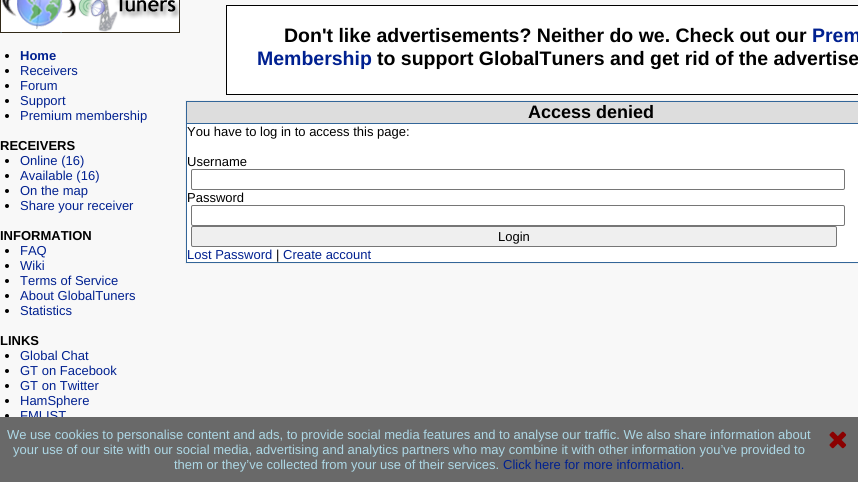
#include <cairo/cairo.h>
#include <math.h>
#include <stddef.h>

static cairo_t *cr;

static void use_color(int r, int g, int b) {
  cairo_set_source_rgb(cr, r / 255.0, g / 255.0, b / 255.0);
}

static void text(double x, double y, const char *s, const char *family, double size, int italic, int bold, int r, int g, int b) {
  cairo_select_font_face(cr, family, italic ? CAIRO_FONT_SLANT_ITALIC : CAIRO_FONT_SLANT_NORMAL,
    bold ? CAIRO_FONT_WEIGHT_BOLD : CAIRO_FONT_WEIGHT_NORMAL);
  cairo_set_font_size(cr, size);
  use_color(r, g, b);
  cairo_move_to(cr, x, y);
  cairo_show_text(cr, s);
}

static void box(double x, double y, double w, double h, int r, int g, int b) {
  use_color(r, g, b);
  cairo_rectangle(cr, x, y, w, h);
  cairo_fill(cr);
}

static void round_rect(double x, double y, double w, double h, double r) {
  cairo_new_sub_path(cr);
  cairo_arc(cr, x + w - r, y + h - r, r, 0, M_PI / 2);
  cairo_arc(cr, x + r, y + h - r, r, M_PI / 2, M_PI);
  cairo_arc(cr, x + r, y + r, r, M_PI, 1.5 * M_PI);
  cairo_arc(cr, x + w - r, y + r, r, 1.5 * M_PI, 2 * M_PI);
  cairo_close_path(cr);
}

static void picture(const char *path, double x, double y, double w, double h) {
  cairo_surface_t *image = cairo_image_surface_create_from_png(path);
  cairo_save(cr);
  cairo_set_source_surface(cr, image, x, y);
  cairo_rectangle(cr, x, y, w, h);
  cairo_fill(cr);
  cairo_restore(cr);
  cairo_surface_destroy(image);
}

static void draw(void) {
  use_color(248, 248, 248);
  cairo_paint(cr);
  picture("img_01.png", 0, 0, 180, 33);
  use_color(0, 0, 0);
  cairo_arc(cr, 7, 56, 2, 0, 2 * M_PI);
  cairo_fill(cr);
  cairo_arc(cr, 7, 71, 2, 0, 2 * M_PI);
  cairo_fill(cr);
  cairo_arc(cr, 7, 86, 2, 0, 2 * M_PI);
  cairo_fill(cr);
  cairo_arc(cr, 7, 101, 2, 0, 2 * M_PI);
  cairo_fill(cr);
  cairo_arc(cr, 7, 116, 2, 0, 2 * M_PI);
  cairo_fill(cr);
  cairo_arc(cr, 7, 161, 2, 0, 2 * M_PI);
  cairo_fill(cr);
  cairo_arc(cr, 7, 176, 2, 0, 2 * M_PI);
  cairo_fill(cr);
  cairo_arc(cr, 7, 191, 2, 0, 2 * M_PI);
  cairo_fill(cr);
  cairo_arc(cr, 7, 206, 2, 0, 2 * M_PI);
  cairo_fill(cr);
  cairo_arc(cr, 7, 251, 2, 0, 2 * M_PI);
  cairo_fill(cr);
  cairo_arc(cr, 7, 266, 2, 0, 2 * M_PI);
  cairo_fill(cr);
  cairo_arc(cr, 7, 281, 2, 0, 2 * M_PI);
  cairo_fill(cr);
  cairo_arc(cr, 7, 296, 2, 0, 2 * M_PI);
  cairo_fill(cr);
  cairo_arc(cr, 7, 311, 2, 0, 2 * M_PI);
  cairo_fill(cr);
  cairo_arc(cr, 7, 356, 2, 0, 2 * M_PI);
  cairo_fill(cr);
  cairo_arc(cr, 7, 371, 2, 0, 2 * M_PI);
  cairo_fill(cr);
  cairo_arc(cr, 7, 386, 2, 0, 2 * M_PI);
  cairo_fill(cr);
  cairo_arc(cr, 7, 401, 2, 0, 2 * M_PI);
  cairo_fill(cr);
  cairo_arc(cr, 7, 416, 2, 0, 2 * M_PI);
  cairo_fill(cr);
  use_color(255, 255, 255);
  cairo_rectangle(cr, 226.5, 5.5, 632, 89);
  cairo_fill_preserve(cr);
  use_color(0, 0, 0);
  cairo_set_line_width(cr, 1);
  cairo_stroke(cr);
  cairo_rectangle(cr, 185.5, 100.5, 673, 163);
  use_color(240, 240, 240);
  cairo_stroke(cr);
  box(187, 124, 671, 138, 255, 255, 255);
  cairo_rectangle(cr, 186.5, 101.5, 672, 161);
  use_color(51, 102, 153);
  cairo_stroke(cr);
  box(187, 102, 671, 21, 221, 221, 221);
  box(187, 123, 671, 1, 51, 102, 153);
  round_rect(191.5, 169.5, 653, 20, 1.5);
  use_color(118, 118, 118);
  cairo_stroke(cr);
  round_rect(191.5, 205.5, 653, 20, 1.5);
  cairo_stroke(cr);
  use_color(239, 239, 239);
  round_rect(191.5, 226.5, 645, 20, 1.5);
  cairo_fill_preserve(cr);
  use_color(118, 118, 118);
  cairo_stroke(cr);
  text(20, 60, "Home", "Liberation Sans", 13, 0, 1, 0, 32, 144);
  text(20, 75, "Receivers", "Liberation Sans", 13, 0, 0, 0, 32, 144);
  text(20, 90, "Forum", "Liberation Sans", 13, 0, 0, 0, 32, 144);
  text(20, 105, "Support", "Liberation Sans", 13, 0, 0, 0, 32, 144);
  text(20, 120, "Premium membership", "Liberation Sans", 13, 0, 0, 0, 32, 144);
  text(0, 150, "RECEIVERS", "Liberation Sans", 13, 0, 1, 0, 0, 0);
  text(20, 165, "Online (16)", "Liberation Sans", 13, 0, 0, 0, 32, 144);
  text(20, 180, "Available (16)", "Liberation Sans", 13, 0, 0, 0, 32, 144);
  text(20, 195, "On the map", "Liberation Sans", 13, 0, 0, 0, 32, 144);
  text(20, 210, "Share your receiver", "Liberation Sans", 13, 0, 0, 0, 32, 144);
  text(0, 240, "INFORMATION", "Liberation Sans", 13, 0, 1, 0, 0, 0);
  text(20, 255, "FAQ", "Liberation Sans", 13, 0, 0, 0, 32, 144);
  text(20, 270, "Wiki", "Liberation Sans", 13, 0, 0, 0, 32, 144);
  text(20, 285, "Terms of Service", "Liberation Sans", 13, 0, 0, 0, 32, 144);
  text(20, 300, "About GlobalTuners", "Liberation Sans", 13, 0, 0, 0, 32, 144);
  text(20, 315, "Statistics", "Liberation Sans", 13, 0, 0, 0, 32, 144);
  text(0, 345, "LINKS", "Liberation Sans", 13, 0, 1, 0, 0, 0);
  text(20, 360, "Global Chat", "Liberation Sans", 13, 0, 0, 0, 32, 144);
  text(20, 375, "GT on Facebook", "Liberation Sans", 13, 0, 0, 0, 32, 144);
  text(20, 390, "GT on Twitter", "Liberation Sans", 13, 0, 0, 0, 32, 144);
  text(20, 405, "HamSphere", "Liberation Sans", 13, 0, 0, 0, 32, 144);
  text(20, 420, "FMLIST", "Liberation Sans", 13, 0, 0, 0, 32, 144);
  text(284, 42, "Don't like advertisements? Neither do we. Check out our", "Liberation Sans", 19.5, 0, 1, 0, 0, 0);
  text(812, 42, "Prem", "Liberation Sans", 19.5, 0, 1, 0, 32, 144);
  text(257, 65, "Membership", "Liberation Sans", 19.5, 0, 1, 0, 32, 144);
  text(377, 65, "to support GlobalTuners and get rid of the advertise", "Liberation Sans", 19.5, 0, 1, 0, 0, 0);
  text(528, 118, "Access denied", "Liberation Sans", 18, 0, 1, 0, 0, 0);
  text(187, 136, "You have to log in to access this page:", "Liberation Sans", 13, 0, 0, 0, 0, 0);
  text(187, 166, "Username", "Liberation Sans", 13, 0, 0, 0, 0, 0);
  text(187, 202, "Password", "Liberation Sans", 13, 0, 0, 0, 0, 0);
  text(498, 241, "Login", "Liberation Sans", 13, 0, 0, 0, 0, 0);
  text(187, 259, "Lost Password", "Liberation Sans", 13, 0, 0, 0, 32, 144);
  text(276, 259, "|", "Liberation Sans", 13, 0, 0, 0, 0, 0);
  text(283, 259, "Create account", "Liberation Sans", 13, 0, 0, 0, 32, 144);
  box(0, 417, 858, 65, 105, 105, 105);
  text(7, 439, "We use cookies to personalise content and ads, to provide social media features and to analyse our traffic. We also share information about", "Liberation Sans", 13, 0, 0, 173, 216, 230);
  picture("img_02.png", 829, 431, 18, 18);
  text(13, 454, "your use of our site with our social media, advertising and analytics partners who may combine it with other information you’ve provided to", "Liberation Sans", 13, 0, 0, 173, 216, 230);
  text(174, 469, "them or they’ve collected from your use of their services.", "Liberation Sans", 13, 0, 0, 173, 216, 230);
  text(503, 469, "Click here for more information.", "Liberation Sans", 13, 0, 0, 0, 32, 144);
}

int main(void) {
  cairo_surface_t *surface = cairo_image_surface_create(CAIRO_FORMAT_RGB24, 858, 482);
  cr = cairo_create(surface);
  cairo_font_options_t *options = cairo_font_options_create();
  cairo_font_options_set_hint_metrics(options, CAIRO_HINT_METRICS_OFF);
  cairo_font_options_set_hint_style(options, CAIRO_HINT_STYLE_NONE);
  cairo_set_font_options(cr, options);
  cairo_set_miter_limit(cr, 4);
  draw();
  cairo_surface_write_to_png(surface, "out.png");
  cairo_font_options_destroy(options);
  cairo_destroy(cr);
  cairo_surface_destroy(surface);
  return 0;
}
